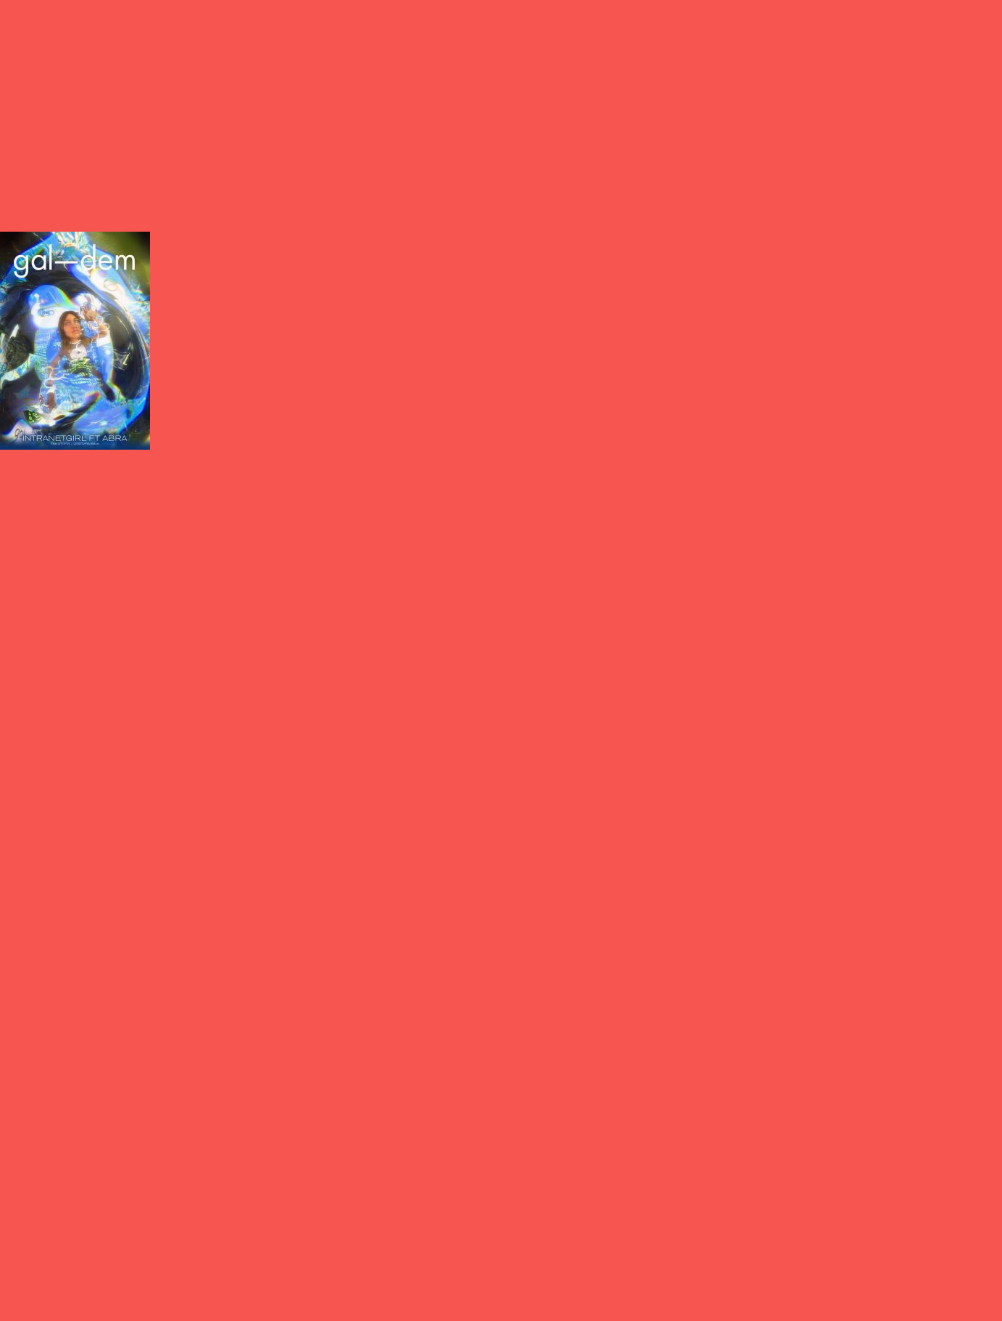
#include <cairo/cairo.h>
#include <math.h>
#include <stddef.h>

static cairo_t *cr;

static void use_color(int r, int g, int b) {
  cairo_set_source_rgb(cr, r / 255.0, g / 255.0, b / 255.0);
}

static void picture(const char *path, double x, double y, double w, double h) {
  cairo_surface_t *image = cairo_image_surface_create_from_png(path);
  cairo_save(cr);
  cairo_set_source_surface(cr, image, x, y);
  cairo_rectangle(cr, x, y, w, h);
  cairo_fill(cr);
  cairo_restore(cr);
  cairo_surface_destroy(image);
}

static void draw(void) {
  use_color(247, 85, 80);
  cairo_paint(cr);
  picture("img_01.png", 0, 231, 150, 219);
}

int main(void) {
  cairo_surface_t *surface = cairo_image_surface_create(CAIRO_FORMAT_RGB24, 1002, 1321);
  cr = cairo_create(surface);
  cairo_font_options_t *options = cairo_font_options_create();
  cairo_font_options_set_hint_metrics(options, CAIRO_HINT_METRICS_OFF);
  cairo_font_options_set_hint_style(options, CAIRO_HINT_STYLE_NONE);
  cairo_set_font_options(cr, options);
  cairo_set_miter_limit(cr, 4);
  draw();
  cairo_surface_write_to_png(surface, "out.png");
  cairo_font_options_destroy(options);
  cairo_destroy(cr);
  cairo_surface_destroy(surface);
  return 0;
}
